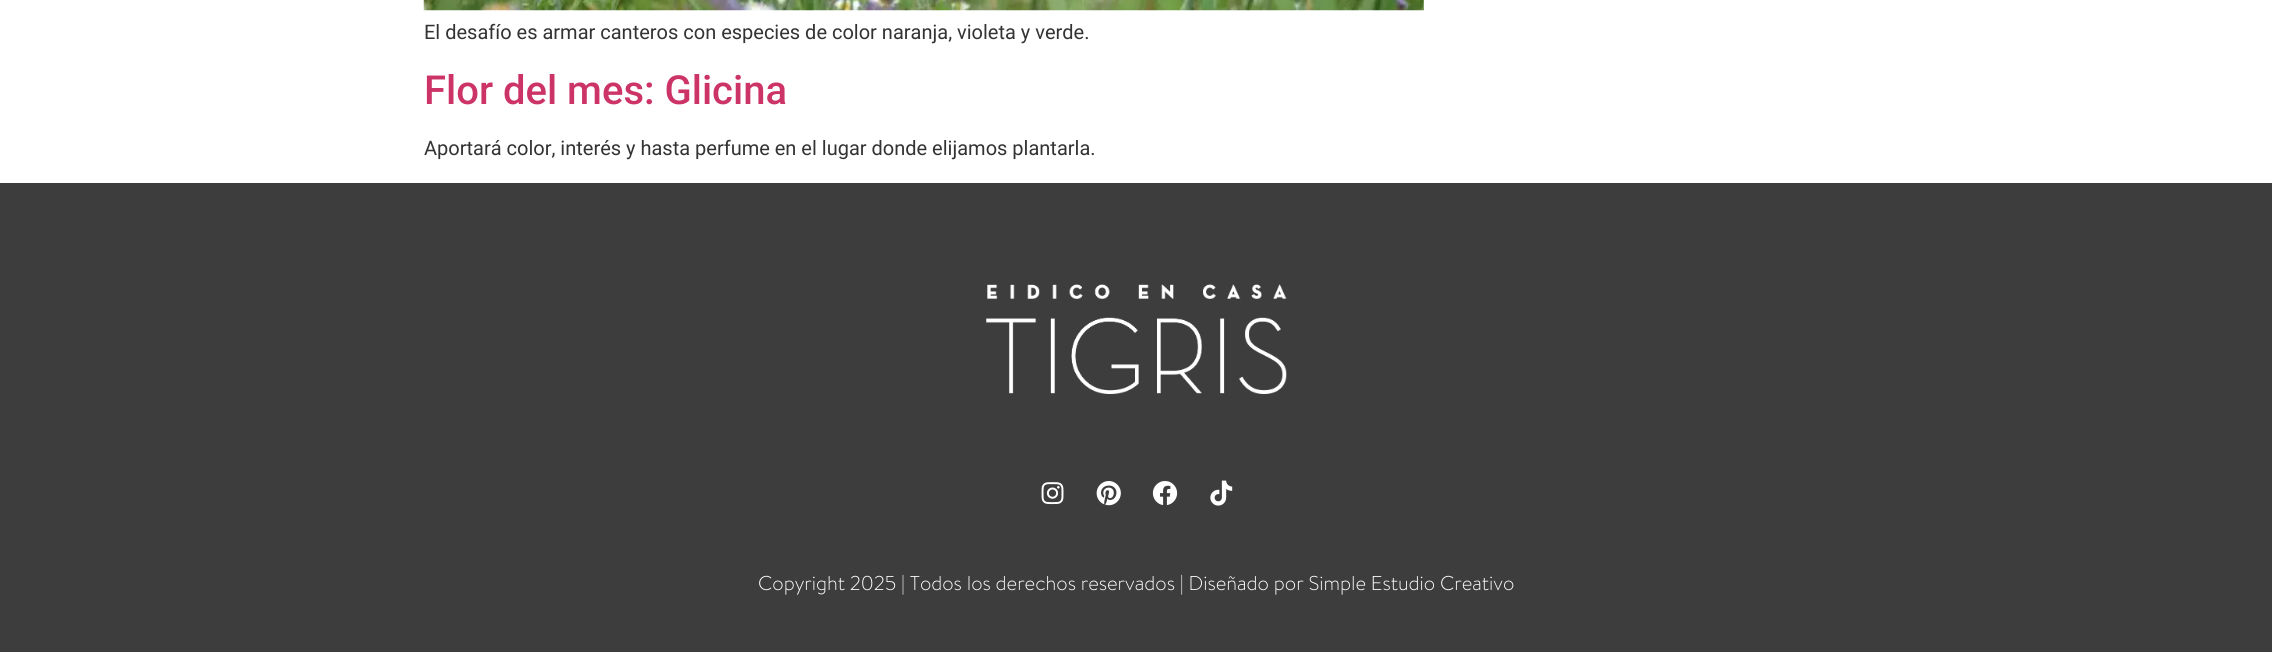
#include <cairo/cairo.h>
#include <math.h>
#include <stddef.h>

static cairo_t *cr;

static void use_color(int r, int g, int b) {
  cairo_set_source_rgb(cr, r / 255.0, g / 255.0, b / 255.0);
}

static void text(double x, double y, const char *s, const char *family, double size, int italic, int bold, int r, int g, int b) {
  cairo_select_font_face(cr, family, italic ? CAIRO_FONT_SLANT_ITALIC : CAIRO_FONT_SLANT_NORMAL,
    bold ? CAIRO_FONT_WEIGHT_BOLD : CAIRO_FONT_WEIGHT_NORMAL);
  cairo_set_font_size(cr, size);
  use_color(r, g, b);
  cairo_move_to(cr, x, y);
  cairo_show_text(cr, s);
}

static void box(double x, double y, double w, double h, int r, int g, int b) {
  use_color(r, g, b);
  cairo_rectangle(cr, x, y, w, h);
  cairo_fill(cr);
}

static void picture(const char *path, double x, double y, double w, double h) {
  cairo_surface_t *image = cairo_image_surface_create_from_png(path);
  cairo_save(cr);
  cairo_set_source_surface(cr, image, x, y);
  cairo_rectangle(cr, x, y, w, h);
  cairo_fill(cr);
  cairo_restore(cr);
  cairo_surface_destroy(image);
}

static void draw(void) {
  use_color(255, 255, 255);
  cairo_paint(cr);
  picture("img_01.png", 423, 0, 1001, 11);
  box(0, 183, 2272, 469, 61, 61, 61);
  picture("img_02.png", 986, 284, 301, 110);
  picture("img_03.png", 1041, 482, 23, 23);
  picture("img_04.png", 1096, 481, 25, 25);
  picture("img_05.png", 1152, 481, 26, 24);
  picture("img_06.png", 1210, 480, 23, 26);
  text(424, 39, "El desafío es armar canteros con especies de color naranja, violeta y verde.", "Roboto", 20, 0, 0, 51, 51, 51);
  text(424, 104, "Flor del mes: Glicina", "Roboto Medium", 40, 0, 0, 204, 51, 102);
  text(424, 155, "Aportará color, interés y hasta perfume en el lugar donde elijamos plantarla.", "Roboto", 20, 0, 0, 51, 51, 51);
  text(758, 590, "Copyright 2025 | Todos los derechos reservados | Diseñado por Simple Estudio Creativo", "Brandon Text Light", 20, 0, 0, 255, 255, 255);
}

int main(void) {
  cairo_surface_t *surface = cairo_image_surface_create(CAIRO_FORMAT_RGB24, 2272, 652);
  cr = cairo_create(surface);
  cairo_font_options_t *options = cairo_font_options_create();
  cairo_font_options_set_hint_metrics(options, CAIRO_HINT_METRICS_OFF);
  cairo_font_options_set_hint_style(options, CAIRO_HINT_STYLE_NONE);
  cairo_set_font_options(cr, options);
  cairo_set_miter_limit(cr, 4);
  draw();
  cairo_surface_write_to_png(surface, "out.png");
  cairo_font_options_destroy(options);
  cairo_destroy(cr);
  cairo_surface_destroy(surface);
  return 0;
}
